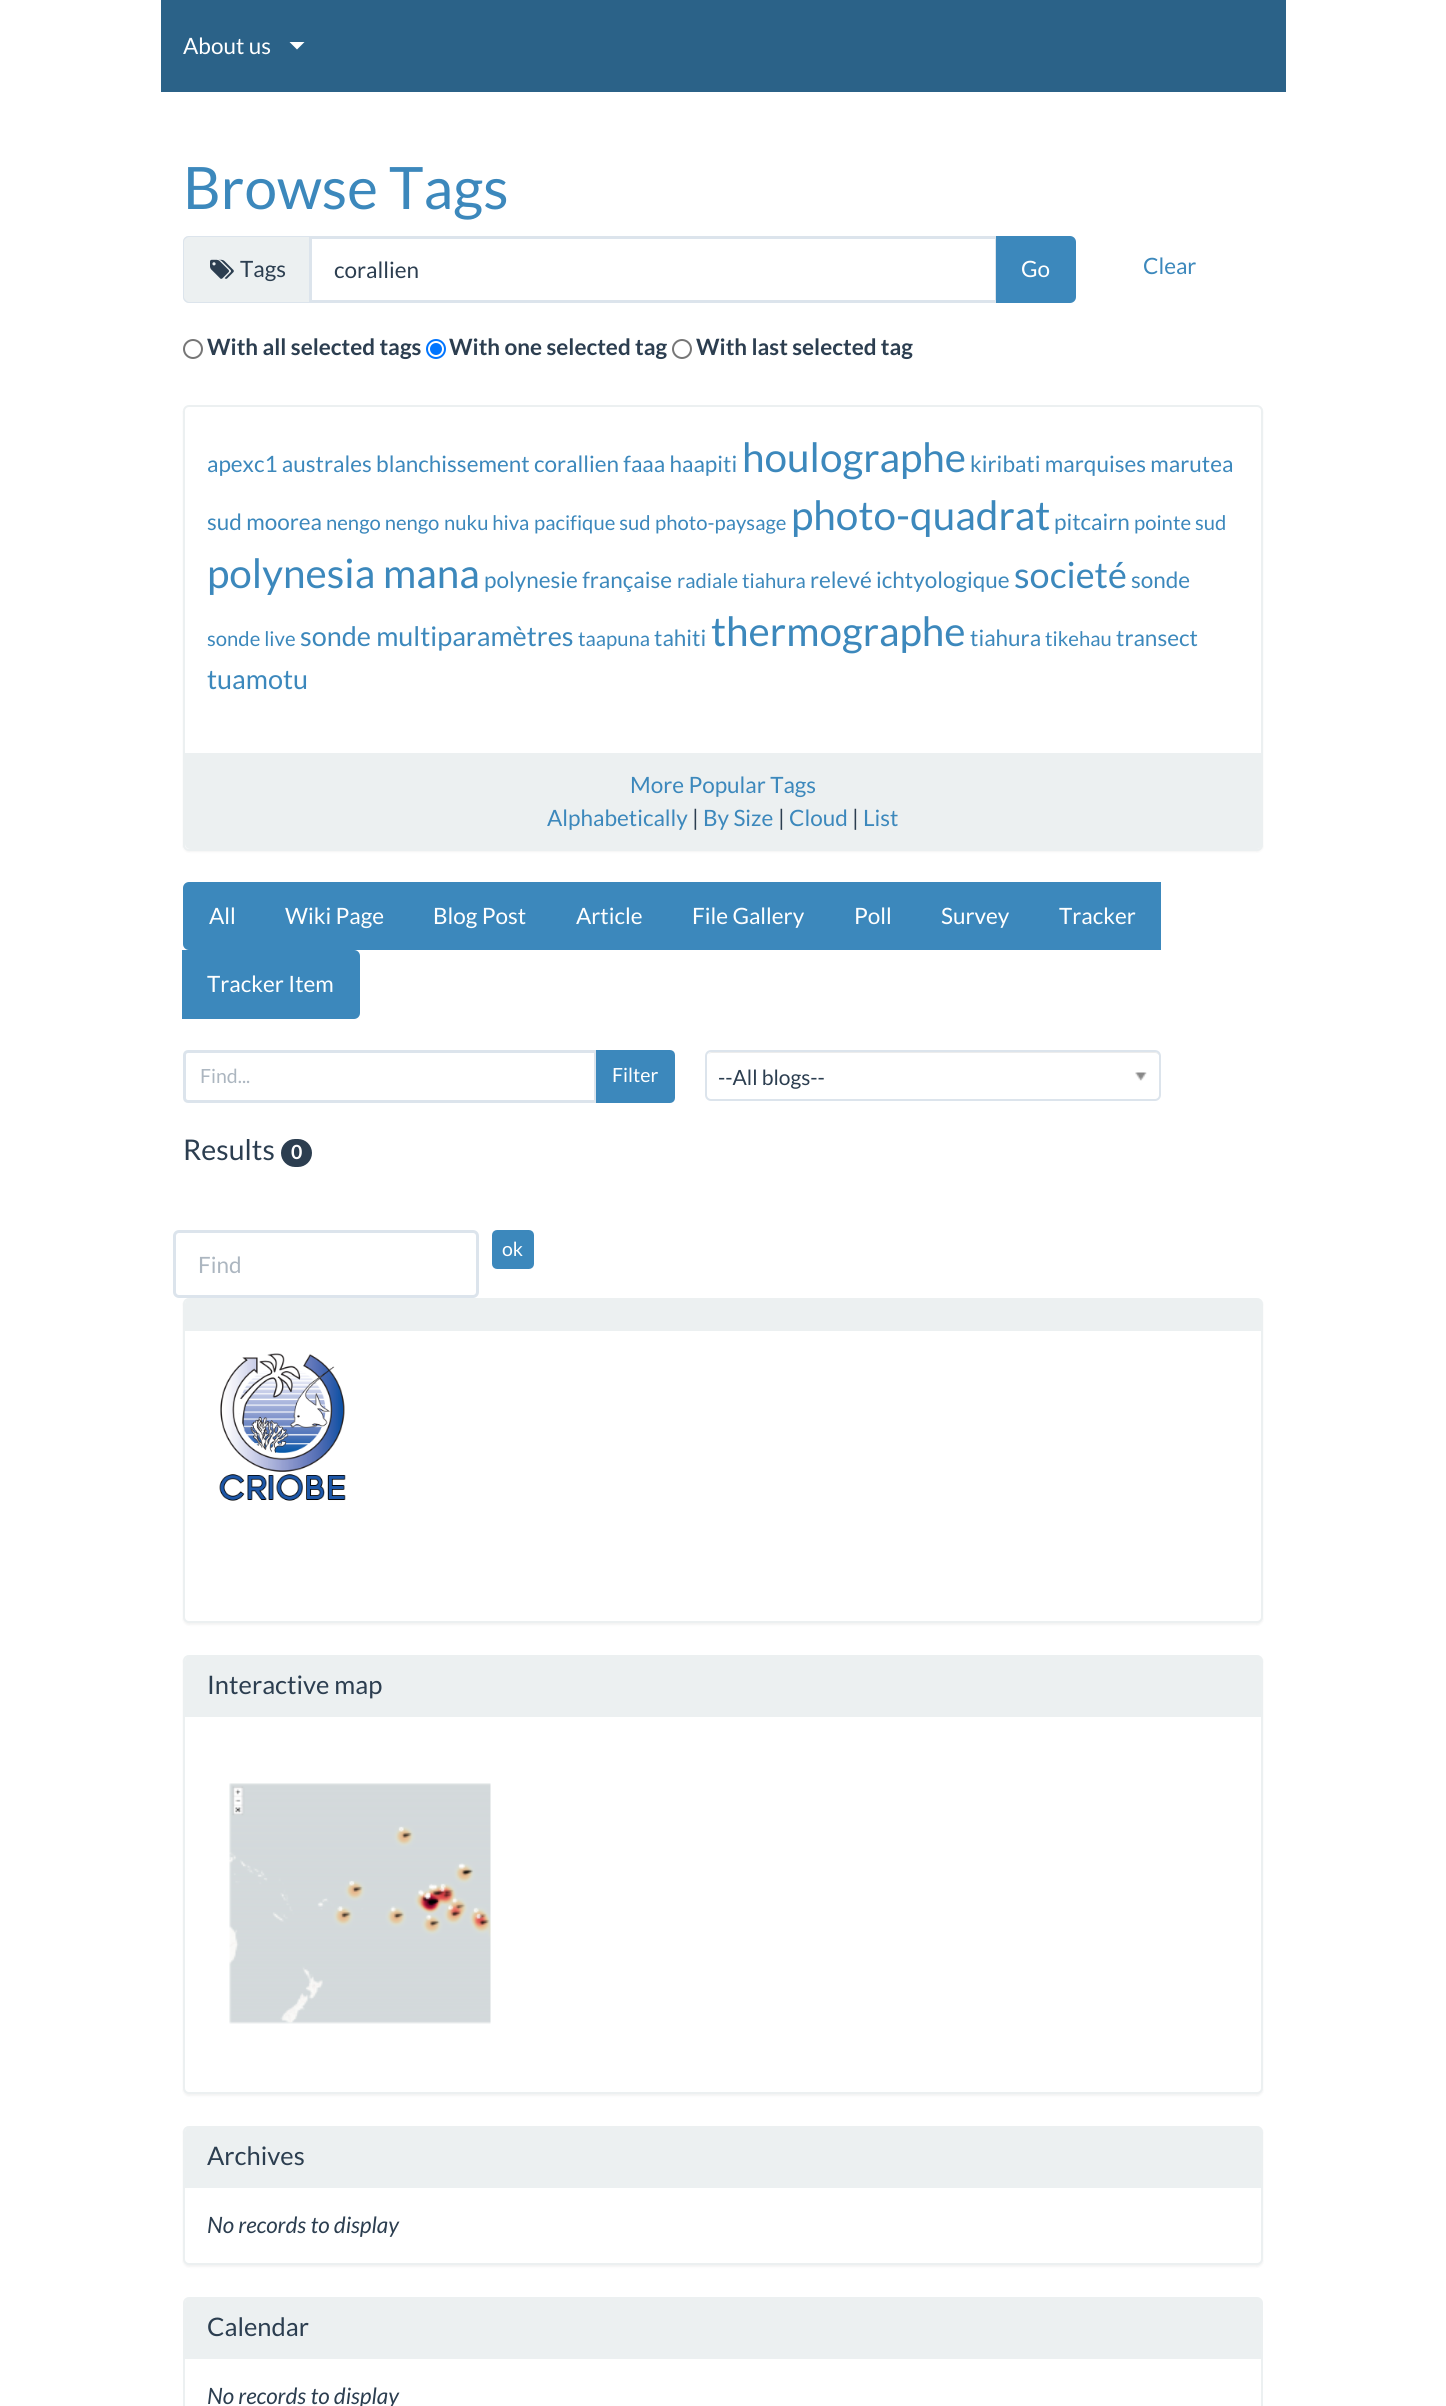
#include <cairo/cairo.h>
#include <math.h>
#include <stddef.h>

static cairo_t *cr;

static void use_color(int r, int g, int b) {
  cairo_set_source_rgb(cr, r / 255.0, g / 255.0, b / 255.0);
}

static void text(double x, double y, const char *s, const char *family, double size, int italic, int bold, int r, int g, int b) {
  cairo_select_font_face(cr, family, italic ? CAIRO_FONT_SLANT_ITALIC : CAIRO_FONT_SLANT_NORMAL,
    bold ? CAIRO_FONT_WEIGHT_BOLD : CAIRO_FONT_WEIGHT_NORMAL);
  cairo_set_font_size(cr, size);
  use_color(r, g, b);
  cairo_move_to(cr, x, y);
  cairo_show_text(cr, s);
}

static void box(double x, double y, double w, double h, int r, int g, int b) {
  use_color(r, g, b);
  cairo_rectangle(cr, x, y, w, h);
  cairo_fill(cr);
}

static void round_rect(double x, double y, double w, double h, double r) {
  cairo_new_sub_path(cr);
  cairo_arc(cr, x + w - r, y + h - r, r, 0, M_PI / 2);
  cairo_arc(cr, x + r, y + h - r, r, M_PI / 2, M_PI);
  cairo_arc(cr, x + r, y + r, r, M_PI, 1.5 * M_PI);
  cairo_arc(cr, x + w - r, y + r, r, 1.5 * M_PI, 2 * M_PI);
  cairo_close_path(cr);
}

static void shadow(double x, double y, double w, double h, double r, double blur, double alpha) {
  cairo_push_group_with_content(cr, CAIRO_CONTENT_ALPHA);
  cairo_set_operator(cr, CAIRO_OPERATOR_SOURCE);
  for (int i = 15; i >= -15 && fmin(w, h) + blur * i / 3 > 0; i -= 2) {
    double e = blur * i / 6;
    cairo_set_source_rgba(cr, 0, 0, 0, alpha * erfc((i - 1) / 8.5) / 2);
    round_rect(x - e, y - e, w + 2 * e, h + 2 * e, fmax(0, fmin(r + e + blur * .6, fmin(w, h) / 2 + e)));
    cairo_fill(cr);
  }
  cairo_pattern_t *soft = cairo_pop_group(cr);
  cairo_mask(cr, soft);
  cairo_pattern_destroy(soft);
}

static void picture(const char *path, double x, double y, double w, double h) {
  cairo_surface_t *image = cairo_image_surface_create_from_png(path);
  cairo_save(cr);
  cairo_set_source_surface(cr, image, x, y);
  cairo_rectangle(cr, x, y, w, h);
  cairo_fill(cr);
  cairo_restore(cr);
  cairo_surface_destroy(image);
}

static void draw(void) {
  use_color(255, 255, 255);
  cairo_paint(cr);
  box(161, 0, 1125, 92, 43, 98, 136);
  use_color(255, 255, 255);
  cairo_new_path(cr);
  cairo_move_to(cr, 289.5, 42);
  cairo_line_to(cr, 304.5, 42);
  cairo_line_to(cr, 297, 49.5);
  cairo_close_path(cr);
  cairo_fill(cr);
  use_color(236, 240, 241);
  cairo_new_path(cr);
  cairo_move_to(cr, 189, 236);
  cairo_line_to(cr, 309, 236);
  cairo_line_to(cr, 309, 303);
  cairo_line_to(cr, 189, 303);
  cairo_curve_to(cr, 185.5, 303, 183, 300.5, 183, 297);
  cairo_line_to(cr, 183, 242);
  cairo_curve_to(cr, 183, 238.5, 185.5, 236, 189, 236);
  cairo_close_path(cr);
  cairo_fill(cr);
  use_color(220, 228, 236);
  cairo_set_fill_rule(cr, CAIRO_FILL_RULE_EVEN_ODD);
  cairo_new_path(cr);
  cairo_move_to(cr, 189, 236);
  cairo_line_to(cr, 309, 236);
  cairo_line_to(cr, 309, 303);
  cairo_line_to(cr, 189, 303);
  cairo_curve_to(cr, 186, 303, 183, 300, 183, 297);
  cairo_line_to(cr, 183, 242);
  cairo_curve_to(cr, 183, 238, 186, 236, 189, 236);
  cairo_close_path(cr);
  cairo_move_to(cr, 189, 237);
  cairo_line_to(cr, 309, 237);
  cairo_line_to(cr, 309, 302);
  cairo_line_to(cr, 189, 302);
  cairo_curve_to(cr, 187, 302, 184, 299, 184, 297);
  cairo_line_to(cr, 184, 242);
  cairo_curve_to(cr, 184, 239, 187, 237, 189, 237);
  cairo_close_path(cr);
  cairo_fill(cr);
  picture("img_01.png", 210, 259, 24, 20);
  cairo_rectangle(cr, 310.5, 237.5, 686, 64);
  cairo_set_line_width(cr, 3);
  cairo_stroke(cr);
  use_color(60, 136, 188);
  cairo_new_path(cr);
  cairo_move_to(cr, 997.5, 237.5);
  cairo_line_to(cr, 1070, 237.5);
  cairo_curve_to(cr, 1072.5, 237.5, 1074.5, 239.5, 1074.5, 242);
  cairo_line_to(cr, 1074.5, 297);
  cairo_curve_to(cr, 1074.5, 299.5, 1072.5, 301.5, 1070, 301.5);
  cairo_line_to(cr, 997.5, 301.5);
  cairo_close_path(cr);
  cairo_fill_preserve(cr);
  cairo_stroke(cr);
  cairo_arc(cr, 193, 349, 9, 0, 2 * M_PI);
  use_color(118, 118, 118);
  cairo_set_line_width(cr, 2);
  cairo_stroke(cr);
  cairo_arc(cr, 436, 349, 9, 0, 2 * M_PI);
  use_color(0, 117, 255);
  cairo_stroke(cr);
  cairo_arc(cr, 436, 349, 6, 0, 2 * M_PI);
  cairo_fill(cr);
  cairo_arc(cr, 682, 349, 9, 0, 2 * M_PI);
  use_color(118, 118, 118);
  cairo_stroke(cr);
  use_color(0, 0, 0);
  shadow(183, 407, 1080, 445, 6, 1, 0.05);
  use_color(255, 255, 255);
  round_rect(184, 406, 1078, 444, 5);
  cairo_fill_preserve(cr);
  use_color(236, 240, 241);
  cairo_stroke(cr);
  cairo_new_path(cr);
  cairo_move_to(cr, 185, 753);
  cairo_line_to(cr, 1262, 753);
  cairo_line_to(cr, 1262, 844);
  cairo_curve_to(cr, 1262, 847, 1260, 849, 1257, 849);
  cairo_line_to(cr, 190, 849);
  cairo_curve_to(cr, 187, 849, 185, 847, 185, 844);
  cairo_close_path(cr);
  cairo_fill(cr);
  use_color(60, 136, 188);
  cairo_new_path(cr);
  cairo_move_to(cr, 189, 883.5);
  cairo_line_to(cr, 259.5, 883.5);
  cairo_line_to(cr, 259.5, 948.5);
  cairo_line_to(cr, 189, 948.5);
  cairo_curve_to(cr, 186.5, 948.5, 184.5, 946.5, 184.5, 944);
  cairo_line_to(cr, 184.5, 888);
  cairo_curve_to(cr, 184.5, 885.5, 186.5, 883.5, 189, 883.5);
  cairo_close_path(cr);
  cairo_fill_preserve(cr);
  cairo_set_line_width(cr, 3);
  cairo_stroke(cr);
  box(261, 882, 900, 68, 60, 136, 188);
  cairo_new_path(cr);
  cairo_move_to(cr, 183.5, 951.5);
  cairo_line_to(cr, 354, 951.5);
  cairo_curve_to(cr, 356.5, 951.5, 358.5, 953.5, 358.5, 956);
  cairo_line_to(cr, 358.5, 1013);
  cairo_curve_to(cr, 358.5, 1015.5, 356.5, 1017.5, 354, 1017.5);
  cairo_line_to(cr, 183.5, 1017.5);
  cairo_close_path(cr);
  cairo_fill_preserve(cr);
  cairo_stroke(cr);
  cairo_new_path(cr);
  cairo_move_to(cr, 188, 1051.5);
  cairo_line_to(cr, 595.5, 1051.5);
  cairo_line_to(cr, 595.5, 1101.5);
  cairo_line_to(cr, 188, 1101.5);
  cairo_curve_to(cr, 186, 1101.5, 184.5, 1100, 184.5, 1098);
  cairo_line_to(cr, 184.5, 1055);
  cairo_curve_to(cr, 184.5, 1053, 186, 1051.5, 188, 1051.5);
  cairo_close_path(cr);
  use_color(220, 228, 236);
  cairo_stroke(cr);
  use_color(60, 136, 188);
  cairo_new_path(cr);
  cairo_move_to(cr, 597.5, 1051.5);
  cairo_line_to(cr, 670, 1051.5);
  cairo_curve_to(cr, 672, 1051.5, 673.5, 1053, 673.5, 1055);
  cairo_line_to(cr, 673.5, 1098);
  cairo_curve_to(cr, 673.5, 1100, 672, 1101.5, 670, 1101.5);
  cairo_line_to(cr, 597.5, 1101.5);
  cairo_close_path(cr);
  cairo_fill_preserve(cr);
  cairo_stroke(cr);
  use_color(236, 236, 236);
  cairo_set_fill_rule(cr, CAIRO_FILL_RULE_WINDING);
  cairo_new_path(cr);
  cairo_move_to(cr, 711, 1053);
  cairo_line_to(cr, 1155, 1053);
  cairo_curve_to(cr, 1157, 1053, 1160, 1055, 1160, 1058);
  cairo_line_to(cr, 1160, 1057);
  cairo_curve_to(cr, 1160, 1054, 1158, 1052, 1155, 1052);
  cairo_line_to(cr, 712, 1052);
  cairo_curve_to(cr, 710, 1052, 709, 1053, 708, 1054);
  cairo_close_path(cr);
  cairo_fill(cr);
  round_rect(706, 1051, 454, 49, 5);
  use_color(220, 228, 236);
  cairo_set_line_width(cr, 2);
  cairo_stroke(cr);
  picture("img_02.png", 1135, 1072, 12, 9);
  use_color(44, 62, 80);
  round_rect(281, 1139, 31, 28, 14);
  cairo_fill(cr);
  use_color(60, 136, 188);
  round_rect(493.5, 1231.5, 39, 36, 3.5);
  cairo_fill_preserve(cr);
  cairo_set_line_width(cr, 3);
  cairo_stroke(cr);
  use_color(0, 0, 0);
  shadow(183, 1299, 1080, 326, 6, 1, 0.05);
  round_rect(174.5, 1231.5, 303, 65, 4.5);
  use_color(220, 228, 236);
  cairo_stroke(cr);
  use_color(255, 255, 255);
  round_rect(184, 1299, 1078, 323, 5);
  cairo_fill_preserve(cr);
  use_color(236, 240, 241);
  cairo_set_line_width(cr, 2);
  cairo_stroke(cr);
  cairo_new_path(cr);
  cairo_move_to(cr, 190, 1299);
  cairo_line_to(cr, 1257, 1299);
  cairo_curve_to(cr, 1260, 1299, 1262, 1301, 1262, 1304);
  cairo_line_to(cr, 1262, 1331);
  cairo_line_to(cr, 185, 1331);
  cairo_line_to(cr, 185, 1304);
  cairo_curve_to(cr, 185, 1301, 187, 1299, 190, 1299);
  cairo_close_path(cr);
  cairo_fill(cr);
  picture("img_03.png", 219, 1353, 127, 148);
  use_color(0, 0, 0);
  shadow(183, 1656, 1080, 440, 6, 1, 0.05);
  use_color(255, 255, 255);
  round_rect(184, 1656, 1078, 437, 5);
  cairo_fill_preserve(cr);
  use_color(236, 240, 241);
  cairo_stroke(cr);
  cairo_new_path(cr);
  cairo_move_to(cr, 190, 1656);
  cairo_line_to(cr, 1257, 1656);
  cairo_curve_to(cr, 1260, 1656, 1262, 1658, 1262, 1661);
  cairo_line_to(cr, 1262, 1716);
  cairo_line_to(cr, 185, 1716);
  cairo_line_to(cr, 185, 1661);
  cairo_curve_to(cr, 185, 1658, 187, 1656, 190, 1656);
  cairo_close_path(cr);
  cairo_fill(cr);
  box(185, 1716, 1077, 1, 236, 240, 241);
  picture("img_04.png", 229, 1783, 262, 241);
  use_color(0, 0, 0);
  shadow(183, 2127, 1080, 140, 6, 1, 0.05);
  use_color(255, 255, 255);
  round_rect(184, 2127, 1078, 137, 5);
  cairo_fill_preserve(cr);
  use_color(236, 240, 241);
  cairo_stroke(cr);
  cairo_new_path(cr);
  cairo_move_to(cr, 190, 2127);
  cairo_line_to(cr, 1257, 2127);
  cairo_curve_to(cr, 1260, 2127, 1262, 2129, 1262, 2132);
  cairo_line_to(cr, 1262, 2187);
  cairo_line_to(cr, 185, 2187);
  cairo_line_to(cr, 185, 2132);
  cairo_curve_to(cr, 185, 2129, 187, 2127, 190, 2127);
  cairo_close_path(cr);
  cairo_fill(cr);
  box(185, 2187, 1077, 1, 236, 240, 241);
  round_rect(184, 2298, 1078, 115, 5);
  cairo_stroke(cr);
  cairo_new_path(cr);
  cairo_move_to(cr, 190, 2298);
  cairo_line_to(cr, 1257, 2298);
  cairo_curve_to(cr, 1260, 2298, 1262, 2300, 1262, 2303);
  cairo_line_to(cr, 1262, 2358);
  cairo_line_to(cr, 185, 2358);
  cairo_line_to(cr, 185, 2303);
  cairo_curve_to(cr, 185, 2300, 187, 2298, 190, 2298);
  cairo_close_path(cr);
  cairo_fill(cr);
  box(185, 2358, 1077, 1, 236, 240, 241);
  text(183, 54, "About us", "Lato", 22.5, 0, 0, 255, 255, 255);
  text(183, 209, "Browse Tags", "Lato", 58.5, 0, 0, 60, 136, 188);
  text(240, 277, "Tags", "Lato", 22.5, 0, 0, 44, 62, 80);
  text(334, 278, "corallien", "Lato", 22.5, 0, 0, 44, 62, 80);
  text(1021, 277, "Go", "Lato", 22.5, 0, 0, 255, 255, 255);
  text(1143, 274, "Clear", "Lato", 22.5, 0, 0, 60, 136, 188);
  text(207, 355, "With all selected tags", "Lato", 22.5, 0, 1, 44, 62, 80);
  text(449, 355, "With one selected tag", "Lato", 22.5, 0, 1, 44, 62, 80);
  text(696, 355, "With last selected tag", "Lato", 22.5, 0, 1, 44, 62, 80);
  text(207, 472, "apexc1 australes blanchissement corallien faaa haapiti", "Lato", 22.5, 0, 0, 60, 136, 188);
  text(742, 472, "houlographe", "Lato", 40.5, 0, 0, 60, 136, 188);
  text(970, 472, "kiribati marquises marutea", "Lato", 22.5, 0, 0, 60, 136, 188);
  text(207, 530, "sud moorea", "Lato", 22.5, 0, 0, 60, 136, 188);
  text(326, 530, "nengo nengo", "Lato", 20.25, 0, 0, 60, 136, 188);
  text(444, 530, "nuku hiva", "Lato", 20.25, 0, 0, 60, 136, 188);
  text(534, 530, "pacifique sud", "Lato", 20.25, 0, 0, 60, 136, 188);
  text(655, 530, "photo-paysage", "Lato", 20.25, 0, 0, 60, 136, 188);
  text(791, 530, "photo-quadrat", "Lato", 40.5, 0, 0, 60, 136, 188);
  text(1054, 530, "pitcairn", "Lato", 22.5, 0, 0, 60, 136, 188);
  text(1134, 530, "pointe sud", "Lato", 20.25, 0, 0, 60, 136, 188);
  text(207, 588, "polynesia mana", "Lato", 40.5, 0, 0, 60, 136, 188);
  text(484, 588, "polynesie française", "Lato", 22.5, 0, 0, 60, 136, 188);
  text(677, 588, "radiale tiahura", "Lato", 20.25, 0, 0, 60, 136, 188);
  text(810, 588, "relevé ichtyologique", "Lato", 22.5, 0, 0, 60, 136, 188);
  text(1014, 588, "societé", "Lato", 36, 0, 0, 60, 136, 188);
  text(1131, 588, "sonde", "Lato", 22.5, 0, 0, 60, 136, 188);
  text(207, 646, "sonde live", "Lato", 20.25, 0, 0, 60, 136, 188);
  text(300, 646, "sonde multiparamètres", "Lato", 27, 0, 0, 60, 136, 188);
  text(578, 646, "taapuna", "Lato", 20.25, 0, 0, 60, 136, 188);
  text(654, 646, "tahiti", "Lato", 22.5, 0, 0, 60, 136, 188);
  text(711, 646, "thermographe", "Lato", 40.5, 0, 0, 60, 136, 188);
  text(970, 646, "tiahura", "Lato", 22.5, 0, 0, 60, 136, 188);
  text(1045, 646, "tikehau", "Lato", 20.25, 0, 0, 60, 136, 188);
  text(1116, 646, "transect", "Lato", 22.5, 0, 0, 60, 136, 188);
  text(207, 689, "tuamotu", "Lato", 27, 0, 0, 60, 136, 188);
  text(630, 793, "More Popular Tags", "Lato", 22.5, 0, 0, 60, 136, 188);
  text(547, 826, "Alphabetically", "Lato", 22.5, 0, 0, 60, 136, 188);
  text(692, 826, "|", "Lato", 22.5, 0, 0, 44, 62, 80);
  text(703, 826, "By Size", "Lato", 22.5, 0, 0, 60, 136, 188);
  text(778, 826, "|", "Lato", 22.5, 0, 0, 44, 62, 80);
  text(789, 826, "Cloud", "Lato", 22.5, 0, 0, 60, 136, 188);
  text(852, 826, "|", "Lato", 22.5, 0, 0, 44, 62, 80);
  text(863, 826, "List", "Lato", 22.5, 0, 0, 60, 136, 188);
  text(209, 924, "All", "Lato", 22.5, 0, 0, 255, 255, 255);
  text(285, 924, "Wiki Page", "Lato", 22.5, 0, 0, 255, 255, 255);
  text(433, 924, "Blog Post", "Lato", 22.5, 0, 0, 255, 255, 255);
  text(576, 924, "Article", "Lato", 22.5, 0, 0, 255, 255, 255);
  text(692, 924, "File Gallery", "Lato", 22.5, 0, 0, 255, 255, 255);
  text(854, 924, "Poll", "Lato", 22.5, 0, 0, 255, 255, 255);
  text(941, 924, "Survey", "Lato", 22.5, 0, 0, 255, 255, 255);
  text(1059, 924, "Tracker", "Lato", 22.5, 0, 0, 255, 255, 255);
  text(207, 992, "Tracker Item", "Lato", 22.5, 0, 0, 255, 255, 255);
  text(200, 1083, "Find...", "Lato", 19.5, 0, 0, 172, 182, 192);
  text(612, 1082, "Filter", "Lato", 19.5, 0, 0, 255, 255, 255);
  text(718, 1085, "--All blogs--", "Lato", 21, 0, 0, 44, 62, 80);
  text(183, 1160, "Results", "Lato", 28.5, 0, 0, 44, 62, 80);
  text(291, 1159, "0", "Lato", 19.5, 0, 1, 255, 255, 255);
  text(502, 1256, "ok", "Lato", 19.5, 0, 0, 255, 255, 255);
  text(198, 1273, "Find", "Lato", 22.5, 0, 0, 172, 182, 192);
  text(207, 1694, "Interactive map", "Lato", 25.5, 0, 0, 44, 62, 80);
  text(207, 2165, "Archives", "Lato", 25.5, 0, 0, 44, 62, 80);
  text(207, 2233, "No records to display", "Lato", 22.5, 1, 0, 44, 62, 80);
  text(207, 2336, "Calendar", "Lato", 25.5, 0, 0, 44, 62, 80);
  text(207, 2404, "No records to display", "Lato", 22.5, 1, 0, 44, 62, 80);
}

int main(void) {
  cairo_surface_t *surface = cairo_image_surface_create(CAIRO_FORMAT_RGB24, 1446, 2406);
  cr = cairo_create(surface);
  cairo_font_options_t *options = cairo_font_options_create();
  cairo_font_options_set_hint_metrics(options, CAIRO_HINT_METRICS_OFF);
  cairo_font_options_set_hint_style(options, CAIRO_HINT_STYLE_NONE);
  cairo_set_font_options(cr, options);
  cairo_set_miter_limit(cr, 4);
  draw();
  cairo_surface_write_to_png(surface, "out.png");
  cairo_font_options_destroy(options);
  cairo_destroy(cr);
  cairo_surface_destroy(surface);
  return 0;
}
